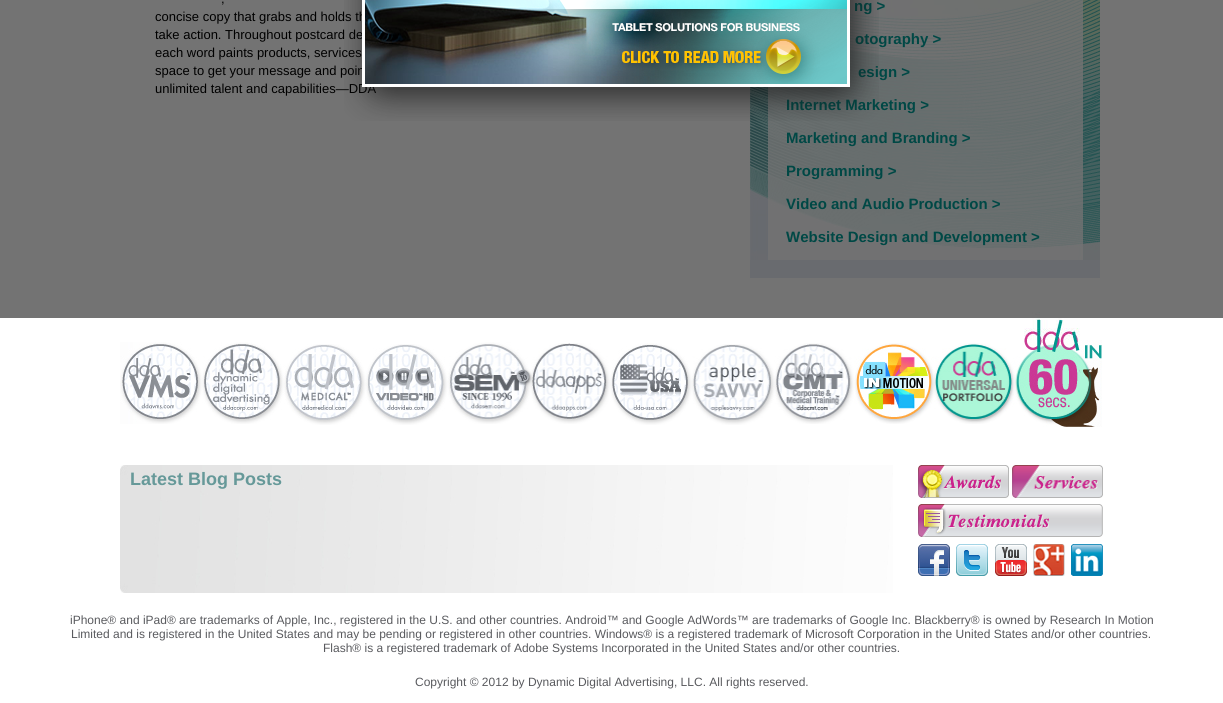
#include <cairo/cairo.h>
#include <math.h>
#include <stddef.h>

static cairo_t *cr;

static void use_color(int r, int g, int b) {
  cairo_set_source_rgb(cr, r / 255.0, g / 255.0, b / 255.0);
}

static void text(double x, double y, const char *s, const char *family, double size, int italic, int bold, int r, int g, int b) {
  cairo_select_font_face(cr, family, italic ? CAIRO_FONT_SLANT_ITALIC : CAIRO_FONT_SLANT_NORMAL,
    bold ? CAIRO_FONT_WEIGHT_BOLD : CAIRO_FONT_WEIGHT_NORMAL);
  cairo_set_font_size(cr, size);
  use_color(r, g, b);
  cairo_move_to(cr, x, y);
  cairo_show_text(cr, s);
}

static void box(double x, double y, double w, double h, int r, int g, int b) {
  use_color(r, g, b);
  cairo_rectangle(cr, x, y, w, h);
  cairo_fill(cr);
}

static void picture(const char *path, double x, double y, double w, double h) {
  cairo_surface_t *image = cairo_image_surface_create_from_png(path);
  cairo_save(cr);
  cairo_set_source_surface(cr, image, x, y);
  cairo_rectangle(cr, x, y, w, h);
  cairo_fill(cr);
  cairo_restore(cr);
  cairo_surface_destroy(image);
}

static void draw(void) {
  use_color(255, 255, 255);
  cairo_paint(cr);
  picture("img_02.png", 750, 0, 350, 260);
  box(750, 260, 350, 18, 232, 237, 246);
  picture("img_03.png", 1024, 312, 56, 28);
  picture("img_04.png", 120, 342, 82, 82);
  picture("img_05.png", 202, 342, 81, 82);
  picture("img_06.png", 283, 344, 82, 81);
  picture("img_07.png", 365, 344, 82, 81);
  picture("img_08.png", 447, 342, 84, 82);
  picture("img_09.png", 531, 343, 79, 81);
  picture("img_10.png", 610, 343, 82, 82);
  picture("img_11.png", 692, 344, 82, 81);
  picture("img_12.png", 774, 343, 80, 81);
  picture("img_13.png", 854, 343, 80, 81);
  picture("img_14.png", 934, 343, 80, 81);
  picture("img_15.png", 1014, 340, 88, 87);
  picture("img_16.png", 120, 465, 773, 128);
  picture("img_17.png", 918, 465, 91, 33);
  picture("img_18.png", 1012, 465, 91, 33);
  picture("img_19.png", 918, 504, 185, 33);
  picture("img_20.png", 918, 544, 32, 32);
  picture("img_21.png", 956, 544, 32, 32);
  picture("img_22.png", 995, 544, 32, 32);
  picture("img_23.png", 1033, 544, 32, 32);
  picture("img_24.png", 1071, 544, 32, 32);
  text(221, 3, ",", "Liberation Sans", 13, 0, 0, 0, 0, 0);
  text(155, 21, "concise copy that grabs and holds th", "Liberation Sans", 13, 0, 0, 0, 0, 0);
  text(155, 39, "take action. Throughout postcard de", "Liberation Sans", 13, 0, 0, 0, 0, 0);
  text(155, 57, "each word paints products, services", "Liberation Sans", 13, 0, 0, 0, 0, 0);
  text(155, 75, "space to get your message and poin", "Liberation Sans", 13, 0, 0, 0, 0, 0);
  text(155, 93, "unlimited talent and capabilities—DDA", "Liberation Sans", 13, 0, 0, 0, 0, 0);
  text(854, 11, "ng >", "Liberation Sans", 15, 0, 1, 0, 160, 154);
  text(855, 44, "otography >", "Liberation Sans", 15, 0, 1, 0, 160, 154);
  text(858, 77, "esign >", "Liberation Sans", 15, 0, 1, 0, 160, 154);
  text(786, 110, "Internet Marketing >", "Liberation Sans", 15, 0, 1, 0, 160, 154);
  text(786, 143, "Marketing and Branding >", "Liberation Sans", 15, 0, 1, 0, 160, 154);
  text(786, 176, "Programming >", "Liberation Sans", 15, 0, 1, 0, 160, 154);
  text(786, 209, "Video and Audio Production >", "Liberation Sans", 15, 0, 1, 0, 160, 154);
  text(786, 242, "Website Design and Development >", "Liberation Sans", 15, 0, 1, 0, 160, 154);
  cairo_set_source_rgba(cr, 0, 0, 0, 0.55);
  cairo_rectangle(cr, 0, 0, 1223, 318);
  cairo_fill(cr);
  picture("img_01.png", 344, 0, 535, 121);
  text(130, 485, "Latest Blog Posts", "Liberation Sans", 18, 0, 1, 102, 153, 153);
  text(70, 624, "iPhone® and iPad® are trademarks of Apple, Inc., registered in the U.S. and other countries. Android™ and Google AdWords™ are trademarks of Google Inc. Blackberry® is owned by Research In Motion", "Liberation Sans", 12, 0, 0, 89, 90, 94);
  text(71, 638, "Limited and is registered in the United States and may be pending or registered in other countries. Windows® is a registered trademark of Microsoft Corporation in the United States and/or other countries.", "Liberation Sans", 12, 0, 0, 89, 90, 94);
  text(323, 652, "Flash® is a registered trademark of Adobe Systems Incorporated in the United States and/or other countries.", "Liberation Sans", 12, 0, 0, 89, 90, 94);
  text(415, 686, "Copyright © 2012 by Dynamic Digital Advertising, LLC. All rights reserved.", "Liberation Sans", 12, 0, 0, 89, 90, 94);
}

int main(void) {
  cairo_surface_t *surface = cairo_image_surface_create(CAIRO_FORMAT_RGB24, 1223, 703);
  cr = cairo_create(surface);
  cairo_font_options_t *options = cairo_font_options_create();
  cairo_font_options_set_hint_metrics(options, CAIRO_HINT_METRICS_OFF);
  cairo_font_options_set_hint_style(options, CAIRO_HINT_STYLE_NONE);
  cairo_set_font_options(cr, options);
  cairo_set_miter_limit(cr, 4);
  draw();
  cairo_surface_write_to_png(surface, "out.png");
  cairo_font_options_destroy(options);
  cairo_destroy(cr);
  cairo_surface_destroy(surface);
  return 0;
}
